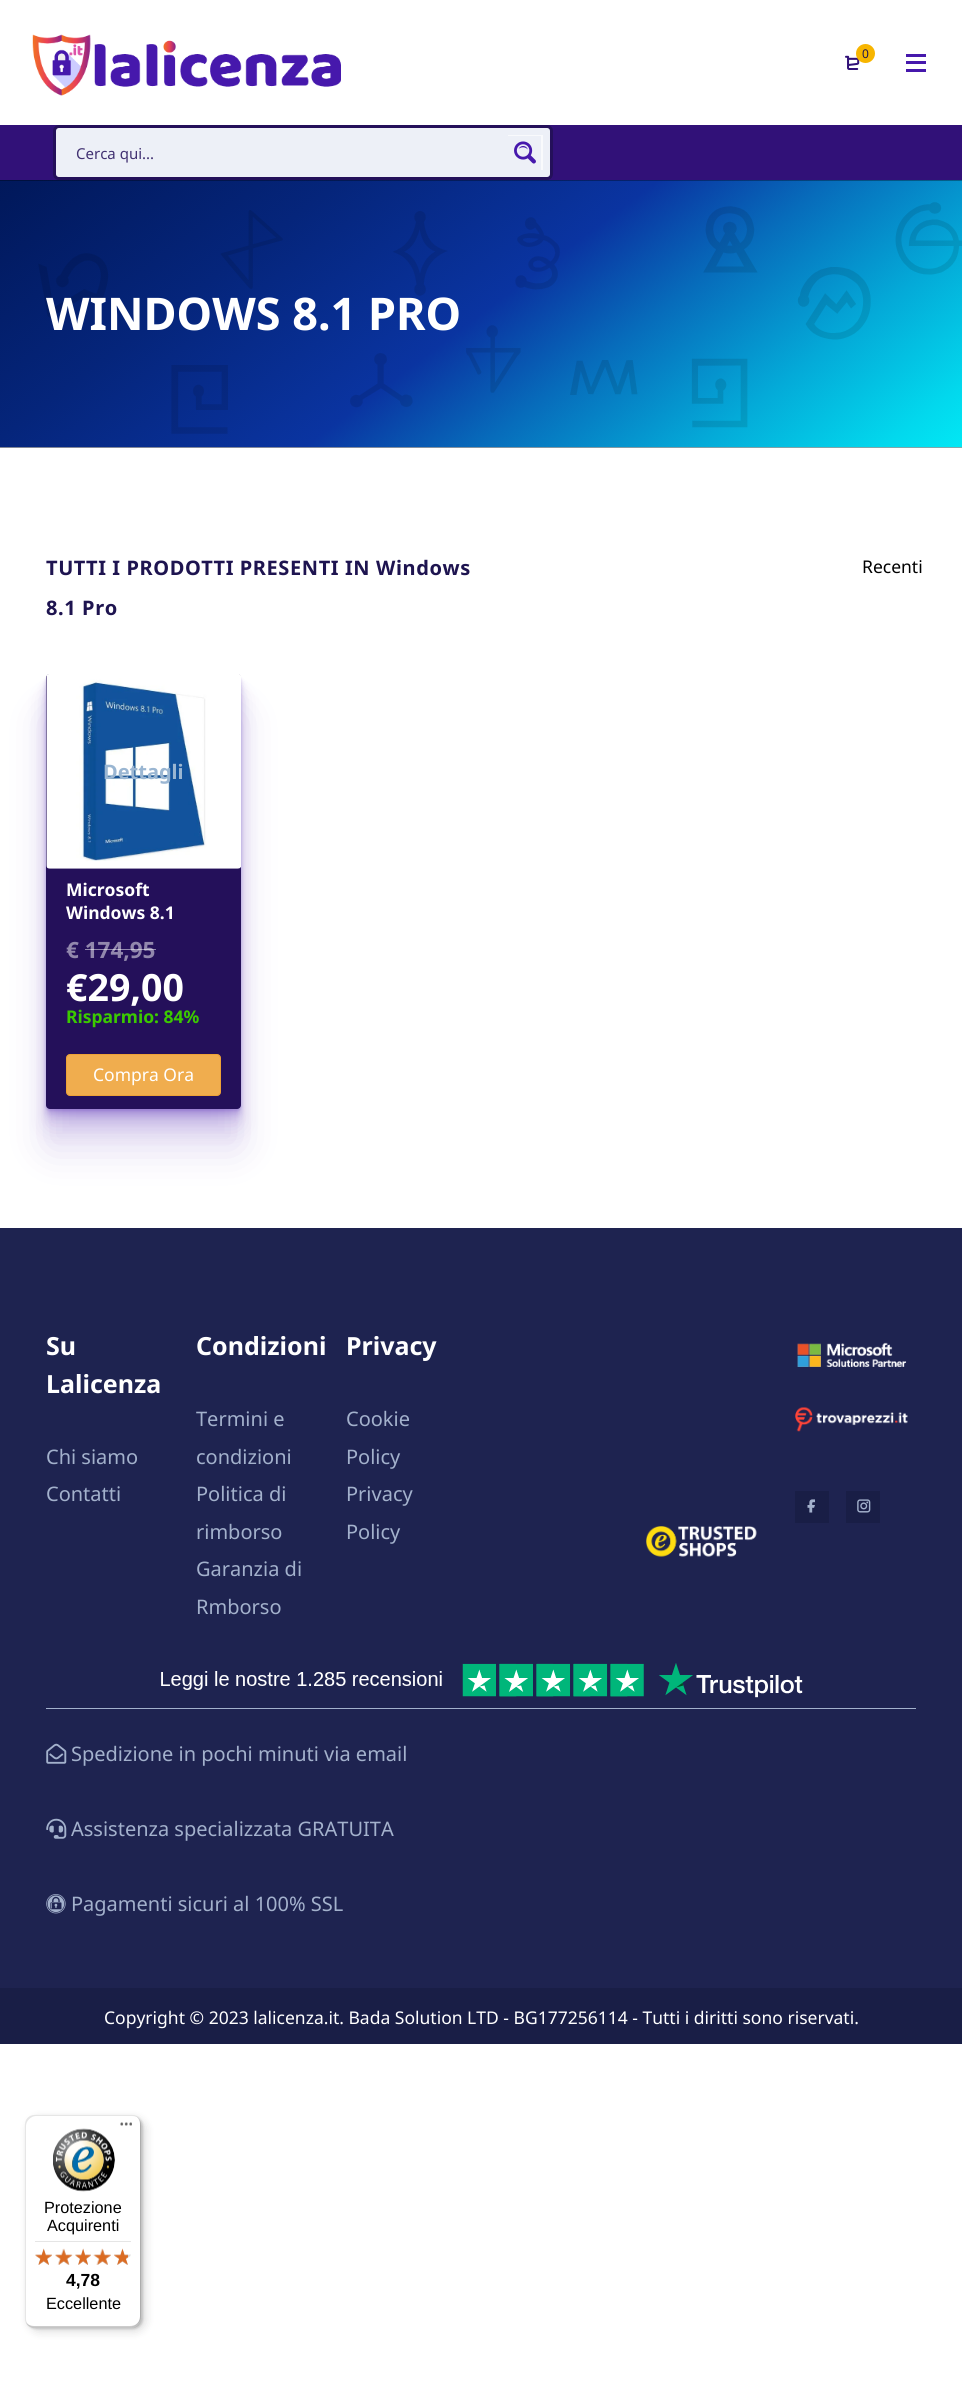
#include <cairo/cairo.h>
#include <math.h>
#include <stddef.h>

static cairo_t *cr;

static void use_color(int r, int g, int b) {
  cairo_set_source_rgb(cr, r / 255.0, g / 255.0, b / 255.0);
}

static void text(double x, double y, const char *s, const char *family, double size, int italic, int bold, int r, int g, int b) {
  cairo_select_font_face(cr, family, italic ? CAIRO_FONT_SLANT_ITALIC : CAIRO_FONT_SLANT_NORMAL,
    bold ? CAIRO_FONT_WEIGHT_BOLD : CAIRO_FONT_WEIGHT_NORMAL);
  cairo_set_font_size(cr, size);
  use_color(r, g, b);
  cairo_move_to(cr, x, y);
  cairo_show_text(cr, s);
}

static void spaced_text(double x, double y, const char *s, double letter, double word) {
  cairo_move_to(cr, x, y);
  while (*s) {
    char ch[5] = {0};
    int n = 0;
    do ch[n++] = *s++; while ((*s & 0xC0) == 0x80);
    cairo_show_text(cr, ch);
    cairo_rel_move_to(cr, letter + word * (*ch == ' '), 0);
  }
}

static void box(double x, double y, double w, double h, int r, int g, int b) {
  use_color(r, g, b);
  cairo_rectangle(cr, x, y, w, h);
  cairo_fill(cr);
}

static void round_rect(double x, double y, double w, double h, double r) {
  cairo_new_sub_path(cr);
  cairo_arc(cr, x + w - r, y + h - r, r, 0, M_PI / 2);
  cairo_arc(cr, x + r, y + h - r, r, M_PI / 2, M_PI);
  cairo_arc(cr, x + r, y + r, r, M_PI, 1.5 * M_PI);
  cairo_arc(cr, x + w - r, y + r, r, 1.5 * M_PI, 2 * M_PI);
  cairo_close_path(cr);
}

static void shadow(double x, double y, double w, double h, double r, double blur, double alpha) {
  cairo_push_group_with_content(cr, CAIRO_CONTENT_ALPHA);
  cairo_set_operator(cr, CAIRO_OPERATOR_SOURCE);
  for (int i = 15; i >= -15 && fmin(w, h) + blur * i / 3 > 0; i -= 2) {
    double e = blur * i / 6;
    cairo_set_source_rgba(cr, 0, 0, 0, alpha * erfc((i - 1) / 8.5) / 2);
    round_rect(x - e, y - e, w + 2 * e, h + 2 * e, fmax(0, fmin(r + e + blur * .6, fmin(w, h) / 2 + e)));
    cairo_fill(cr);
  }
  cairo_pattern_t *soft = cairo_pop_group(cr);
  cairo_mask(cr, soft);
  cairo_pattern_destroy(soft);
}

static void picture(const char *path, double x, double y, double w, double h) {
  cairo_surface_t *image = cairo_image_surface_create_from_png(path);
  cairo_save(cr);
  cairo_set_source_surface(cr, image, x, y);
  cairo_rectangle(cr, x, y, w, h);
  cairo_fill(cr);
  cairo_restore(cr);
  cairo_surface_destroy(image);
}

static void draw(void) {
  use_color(255, 255, 255);
  cairo_paint(cr);
  picture("img_01.png", 32, 34, 309, 62);
  picture("img_02.png", 845, 55, 15, 15);
  use_color(247, 181, 0);
  cairo_arc(cr, 865.5, 53.5, 9.5, 0, 2 * M_PI);
  cairo_fill(cr);
  box(906, 61, 20, 3, 70, 24, 172);
  box(906, 54, 20, 3, 70, 24, 172);
  box(906, 69, 20, 3, 70, 24, 172);
  box(0, 125, 962, 55, 49, 17, 120);
  use_color(237, 240, 247);
  round_rect(54.5, 126.5, 497, 52, 4.5);
  cairo_fill_preserve(cr);
  use_color(36, 16, 90);
  cairo_set_line_width(cr, 3);
  cairo_stroke(cr);
  cairo_save(cr);
  cairo_rectangle(cr, 508, 135, 35, 35);
  cairo_clip(cr);
  use_color(249, 250, 252);
  cairo_set_fill_rule(cr, CAIRO_FILL_RULE_EVEN_ODD);
  cairo_new_path(cr);
  cairo_move_to(cr, 384, 178);
  cairo_line_to(cr, 384, 128);
  cairo_line_to(cr, 546, 128);
  cairo_curve_to(cr, 548, 128, 550, 130, 550, 132);
  cairo_line_to(cr, 550, 174);
  cairo_curve_to(cr, 550, 176, 548, 178, 546, 178);
  cairo_close_path(cr);
  cairo_move_to(cr, 506, 136);
  cairo_line_to(cr, 506, 171);
  cairo_line_to(cr, 541, 171);
  cairo_line_to(cr, 541, 136);
  cairo_close_path(cr);
  cairo_fill(cr);
  cairo_restore(cr);
  picture("img_03.png", 514, 141, 22, 23);
  picture("img_04.png", 0, 180, 962, 268);
  use_color(70, 24, 172);
  shadow(46, 714, 195, 435, 4, 20, 0.15);
  shadow(46, 694, 195, 435, 4, 10, 0.15);
  shadow(46, 684, 195, 435, 4, 5, 0.15);
  shadow(46, 679, 195, 435, 4, 2.5, 0.15);
  shadow(46, 676, 195, 435, 4, 1, 0.15);
  use_color(36, 16, 90);
  round_rect(46, 674, 195, 435, 4);
  cairo_fill(cr);
  picture("img_05.png", 46, 674, 195, 195);
  use_color(240, 173, 78);
  round_rect(66.5, 1054.5, 154, 41, 3.5);
  cairo_fill_preserve(cr);
  use_color(238, 162, 54);
  cairo_set_line_width(cr, 1);
  cairo_stroke(cr);
  box(0, 1228, 962, 760, 30, 35, 80);
  picture("img_06.png", 797, 1342, 110, 25);
  picture("img_07.png", 795, 1407, 113, 25);
  box(795, 1491, 34, 32, 25, 30, 70);
  picture("img_08.png", 807, 1499, 8, 14);
  box(846, 1491, 34, 32, 25, 30, 70);
  picture("img_09.png", 857, 1499, 14, 14);
  picture("img_10.png", 646, 1526, 111, 31);
  picture("img_11.png", 161, 1663, 642, 35);
  box(46, 1708, 870, 1, 163, 177, 204);
  picture("img_12.png", 46, 1743, 21, 21);
  picture("img_13.png", 46, 1818, 21, 21);
  picture("img_14.png", 46, 1894, 20, 20);
  box(0, 1988, 962, 56, 25, 30, 70);
  use_color(0, 0, 0);
  shadow(29, 2119, 116, 212, 10, 5, 0.15);
  shadow(26, 2116, 117, 213, 10, 1, 0.15);
  use_color(255, 255, 255);
  round_rect(25, 2115, 116, 213, 10);
  cairo_fill(cr);
  cairo_set_source_rgba(cr, 0, 0, 0, 0.1);
  cairo_new_path(cr);
  cairo_move_to(cr, 36, 2116);
  cairo_line_to(cr, 132, 2116);
  cairo_curve_to(cr, 135, 2116, 137, 2117, 139, 2118);
  cairo_curve_to(cr, 137, 2116, 134, 2115, 131, 2115);
  cairo_line_to(cr, 35, 2115);
  cairo_curve_to(cr, 29, 2115, 25, 2119, 25, 2125);
  cairo_line_to(cr, 25, 2318);
  cairo_curve_to(cr, 25, 2322, 27, 2325, 30, 2327);
  cairo_curve_to(cr, 28, 2325, 26, 2322, 26, 2319);
  cairo_line_to(cr, 26, 2126);
  cairo_curve_to(cr, 26, 2121, 31, 2116, 36, 2116);
  cairo_close_path(cr);
  cairo_fill(cr);
  cairo_set_source_rgba(cr, 0, 0, 0, 0.2);
  cairo_new_path(cr);
  cairo_move_to(cr, 26, 2322);
  cairo_curve_to(cr, 28, 2326, 31, 2328, 35, 2328);
  cairo_line_to(cr, 131, 2328);
  cairo_curve_to(cr, 137, 2328, 141, 2324, 141, 2318);
  cairo_line_to(cr, 141, 2125);
  cairo_curve_to(cr, 141, 2123, 140, 2120, 139, 2119);
  cairo_curve_to(cr, 140, 2120, 140, 2122, 140, 2124);
  cairo_line_to(cr, 140, 2316);
  cairo_curve_to(cr, 140, 2322, 136, 2326, 130, 2326);
  cairo_line_to(cr, 34, 2326);
  cairo_curve_to(cr, 31, 2326, 28, 2325, 26, 2322);
  cairo_close_path(cr);
  cairo_fill(cr);
  cairo_set_source_rgba(cr, 0.196, 0.196, 0.196, 0.2);
  cairo_new_path(cr);
  cairo_move_to(cr, 26, 2323);
  cairo_curve_to(cr, 28, 2326, 31, 2328, 35, 2328);
  cairo_line_to(cr, 131, 2328);
  cairo_curve_to(cr, 137, 2328, 141, 2324, 141, 2318);
  cairo_line_to(cr, 141, 2125);
  cairo_curve_to(cr, 141, 2122, 140, 2119, 137, 2117);
  cairo_curve_to(cr, 139, 2119, 140, 2122, 140, 2124);
  cairo_line_to(cr, 140, 2317);
  cairo_curve_to(cr, 140, 2322, 136, 2327, 130, 2327);
  cairo_line_to(cr, 34, 2327);
  cairo_curve_to(cr, 31, 2327, 28, 2325, 26, 2323);
  cairo_close_path(cr);
  cairo_fill(cr);
  picture("img_15.png", 120, 2122, 12, 4);
  cairo_set_source_rgba(cr, 1, 1, 1, 0.3);
  cairo_new_path(cr);
  cairo_move_to(cr, 26, 2323);
  cairo_curve_to(cr, 28, 2326, 31, 2328, 35, 2328);
  cairo_line_to(cr, 131, 2328);
  cairo_curve_to(cr, 137, 2328, 141, 2324, 141, 2318);
  cairo_line_to(cr, 141, 2317);
  cairo_curve_to(cr, 141, 2322, 136, 2327, 131, 2327);
  cairo_line_to(cr, 34, 2327);
  cairo_curve_to(cr, 31, 2327, 28, 2325, 26, 2323);
  cairo_close_path(cr);
  cairo_fill(cr);
  picture("img_16.png", 53, 2128, 62, 64);
  box(35, 2241, 96, 1, 229, 229, 229);
  picture("img_22.png", 35, 2249, 17, 16);
  picture("img_17.png", 35, 2248, 17, 17);
  picture("img_23.png", 55, 2249, 17, 16);
  picture("img_18.png", 55, 2248, 18, 17);
  picture("img_24.png", 75, 2249, 16, 16);
  picture("img_19.png", 75, 2248, 16, 17);
  picture("img_25.png", 93, 2249, 18, 16);
  picture("img_20.png", 93, 2248, 18, 17);
  picture("img_26.png", 114, 2249, 17, 16);
  picture("img_21.png", 114, 2248, 14, 17);
  text(862, 58, "0", "Noto Sans", 12, 0, 0, 30, 20, 80);
  text(76, 159, "Cerca qui...", "Noto Sans", 15, 0, 0, 66, 50, 114);
  text(46, 330, "WINDOWS 8.1 PRO", "Noto Sans", 45, 0, 1, 255, 255, 255);
  cairo_set_font_size(cr, 20);
  use_color(30, 20, 80);
  spaced_text(46, 575, "TUTTI I PRODOTTI PRESENTI IN Windows", 0.6, 0);
  spaced_text(46, 615, "8.1 Pro", 0.6, 0);
  text(862, 573, "Recenti", "Noto Sans", 17.5, 0, 0, 0, 0, 0);
  text(103, 779, "Dettagli", "Noto Sans", 20, 0, 1, 154, 182, 210);
  text(66, 896, "Microsoft", "Noto Sans", 17.5, 0, 1, 255, 255, 255);
  text(66, 919, "Windows 8.1", "Noto Sans", 17.5, 0, 1, 255, 255, 255);
  text(66, 958, "€ 174,95", "Noto Sans", 22.5, 0, 1, 146, 136, 173);
  cairo_set_source_rgba(cr, 1, 1, 1, 0.5);
  cairo_rectangle(cr, 85, 949, 71, 1);
  cairo_fill(cr);
  text(66, 1001, "€29,00", "Noto Sans", 37.5, 0, 1, 255, 255, 255);
  text(66, 1023, "Risparmio: 84%", "Noto Sans", 17.5, 0, 1, 59, 202, 0);
  text(93, 1081, "Compra Ora", "Noto Sans", 17.5, 0, 0, 255, 255, 255);
  text(46, 1355, "Su", "Noto Sans", 25, 0, 1, 255, 255, 255);
  text(46, 1393, "Lalicenza", "Noto Sans", 25, 0, 1, 255, 255, 255);
  text(46, 1464, "Chi siamo", "Noto Sans", 20, 0, 0, 163, 177, 204);
  text(46, 1501, "Contatti", "Noto Sans", 20, 0, 0, 163, 177, 204);
  text(196, 1355, "Condizioni", "Noto Sans", 25, 0, 1, 255, 255, 255);
  text(196, 1426, "Termini e", "Noto Sans", 20, 0, 0, 163, 177, 204);
  text(196, 1464, "condizioni", "Noto Sans", 20, 0, 0, 163, 177, 204);
  text(196, 1501, "Politica di", "Noto Sans", 20, 0, 0, 163, 177, 204);
  text(196, 1539, "rimborso", "Noto Sans", 20, 0, 0, 163, 177, 204);
  text(196, 1576, "Garanzia di", "Noto Sans", 20, 0, 0, 163, 177, 204);
  text(196, 1614, "Rmborso", "Noto Sans", 20, 0, 0, 163, 177, 204);
  text(346, 1355, "Privacy", "Noto Sans", 25, 0, 1, 255, 255, 255);
  text(346, 1426, "Cookie", "Noto Sans", 20, 0, 0, 163, 177, 204);
  text(346, 1464, "Policy", "Noto Sans", 20, 0, 0, 163, 177, 204);
  text(346, 1501, "Privacy", "Noto Sans", 20, 0, 0, 163, 177, 204);
  text(346, 1539, "Policy", "Noto Sans", 20, 0, 0, 163, 177, 204);
  text(71, 1761, "Spedizione in pochi minuti via email", "Noto Sans", 20, 0, 0, 163, 177, 204);
  text(71, 1836, "Assistenza specializzata GRATUITA", "Noto Sans", 20, 0, 0, 163, 177, 204);
  text(71, 1911, "Pagamenti sicuri al 100% SSL", "Noto Sans", 20, 0, 0, 163, 177, 204);
  text(104, 2024, "Copyright © 2023 lalicenza.it. Bada Solution LTD - BG177256114 - Tutti i diritti sono riservati.", "Noto Sans", 17.5, 0, 0, 255, 255, 255);
  text(44, 2213, "Protezione", "Liberation Sans", 16.25, 0, 0, 0, 0, 0);
  text(47, 2231, "Acquirenti", "Liberation Sans", 16.25, 0, 0, 0, 0, 0);
  text(66, 2286, "4,78", "Liberation Sans", 17.5, 0, 1, 0, 0, 0);
  text(46, 2309, "Eccellente", "Liberation Sans", 16.25, 0, 0, 0, 0, 0);
}

int main(void) {
  cairo_surface_t *surface = cairo_image_surface_create(CAIRO_FORMAT_RGB24, 962, 2394);
  cr = cairo_create(surface);
  cairo_font_options_t *options = cairo_font_options_create();
  cairo_font_options_set_hint_metrics(options, CAIRO_HINT_METRICS_OFF);
  cairo_font_options_set_hint_style(options, CAIRO_HINT_STYLE_NONE);
  cairo_set_font_options(cr, options);
  cairo_set_miter_limit(cr, 4);
  draw();
  cairo_surface_write_to_png(surface, "out.png");
  cairo_font_options_destroy(options);
  cairo_destroy(cr);
  cairo_surface_destroy(surface);
  return 0;
}
